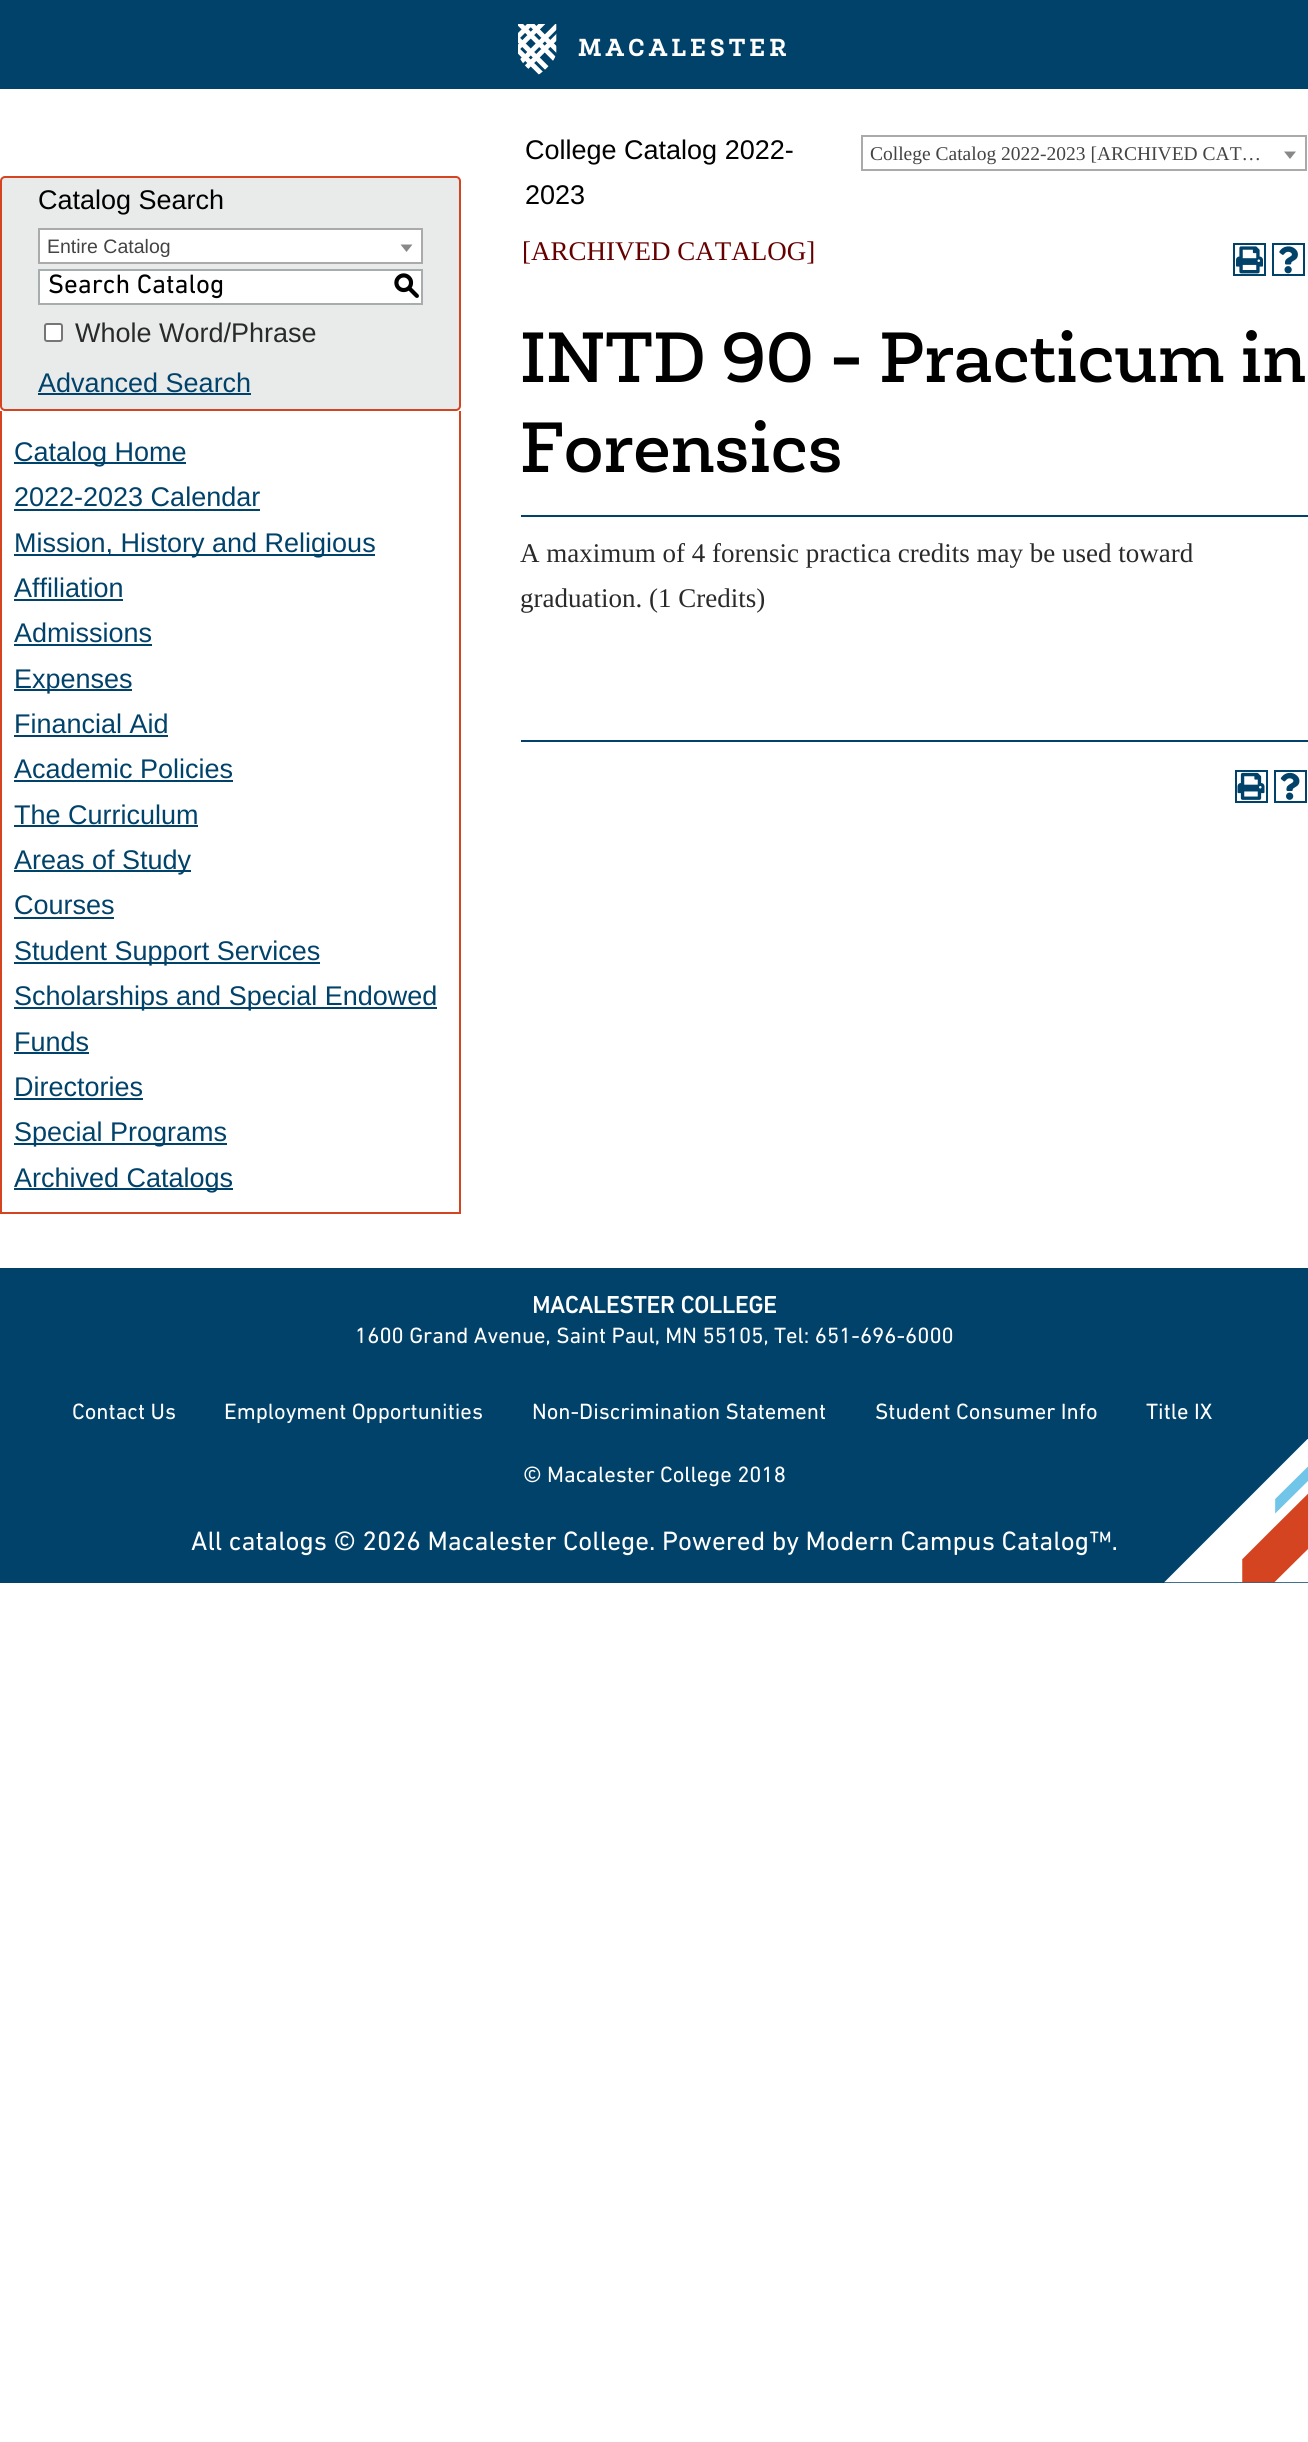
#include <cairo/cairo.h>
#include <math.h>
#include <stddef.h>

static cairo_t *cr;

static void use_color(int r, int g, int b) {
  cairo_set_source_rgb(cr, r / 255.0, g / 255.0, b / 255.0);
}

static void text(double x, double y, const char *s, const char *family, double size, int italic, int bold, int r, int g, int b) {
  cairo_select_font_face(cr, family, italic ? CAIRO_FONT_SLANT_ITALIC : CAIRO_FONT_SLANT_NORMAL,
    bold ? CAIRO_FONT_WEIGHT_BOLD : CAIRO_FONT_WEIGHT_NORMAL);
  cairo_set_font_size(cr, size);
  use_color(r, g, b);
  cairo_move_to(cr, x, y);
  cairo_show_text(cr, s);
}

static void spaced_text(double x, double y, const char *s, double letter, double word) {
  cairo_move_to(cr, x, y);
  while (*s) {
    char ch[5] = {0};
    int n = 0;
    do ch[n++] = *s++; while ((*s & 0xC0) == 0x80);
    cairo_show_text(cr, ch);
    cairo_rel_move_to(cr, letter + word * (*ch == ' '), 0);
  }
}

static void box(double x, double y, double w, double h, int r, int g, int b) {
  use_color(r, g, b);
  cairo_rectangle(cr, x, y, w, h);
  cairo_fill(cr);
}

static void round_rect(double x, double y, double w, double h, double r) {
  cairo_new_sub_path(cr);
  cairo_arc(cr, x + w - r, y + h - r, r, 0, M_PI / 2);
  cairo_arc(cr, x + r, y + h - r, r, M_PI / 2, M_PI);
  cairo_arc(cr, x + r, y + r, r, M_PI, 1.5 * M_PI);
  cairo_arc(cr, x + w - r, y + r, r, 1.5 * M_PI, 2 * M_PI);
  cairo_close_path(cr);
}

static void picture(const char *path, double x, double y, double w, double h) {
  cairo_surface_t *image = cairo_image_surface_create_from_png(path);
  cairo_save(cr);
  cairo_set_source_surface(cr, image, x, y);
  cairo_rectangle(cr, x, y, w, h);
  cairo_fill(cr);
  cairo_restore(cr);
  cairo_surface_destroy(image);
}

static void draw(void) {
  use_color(255, 255, 255);
  cairo_paint(cr);
  box(0, 0, 1308, 89, 1, 66, 106);
  picture("img_01.png", 518, 24, 39, 51);
  cairo_rectangle(cr, 862, 136, 444, 34);
  use_color(170, 170, 170);
  cairo_stroke(cr);
  use_color(136, 136, 136);
  cairo_new_path(cr);
  cairo_move_to(cr, 1284, 151.5);
  cairo_line_to(cr, 1296, 151.5);
  cairo_line_to(cr, 1290, 159);
  cairo_close_path(cr);
  cairo_fill(cr);
  use_color(233, 235, 235);
  round_rect(1, 177, 459, 233, 4);
  cairo_fill_preserve(cr);
  use_color(212, 68, 32);
  cairo_stroke(cr);
  use_color(255, 255, 255);
  cairo_rectangle(cr, 39, 229, 383, 34);
  cairo_fill_preserve(cr);
  use_color(170, 170, 170);
  cairo_stroke(cr);
  use_color(136, 136, 136);
  cairo_new_path(cr);
  cairo_move_to(cr, 400.5, 244.5);
  cairo_line_to(cr, 412.5, 244.5);
  cairo_line_to(cr, 406.5, 252);
  cairo_close_path(cr);
  cairo_fill(cr);
  use_color(255, 255, 255);
  cairo_rectangle(cr, 39, 270, 383, 34);
  cairo_fill_preserve(cr);
  use_color(165, 173, 175);
  cairo_stroke(cr);
  use_color(255, 255, 255);
  round_rect(45, 324, 17, 17, 2);
  cairo_fill_preserve(cr);
  use_color(118, 118, 118);
  cairo_stroke(cr);
  box(38, 393, 213, 2, 1, 66, 106);
  box(459, 411, 2, 803, 212, 68, 32);
  box(0, 1212, 461, 2, 212, 68, 32);
  box(0, 411, 2, 803, 212, 68, 32);
  box(14, 462, 172, 2, 1, 66, 106);
  box(14, 509, 246, 2, 1, 66, 106);
  box(14, 554, 361, 2, 1, 66, 106);
  box(14, 599, 109, 2, 1, 66, 106);
  box(14, 644, 138, 2, 1, 66, 106);
  box(14, 689, 118, 2, 1, 66, 106);
  box(14, 735, 154, 2, 1, 66, 106);
  box(14, 780, 219, 2, 1, 66, 106);
  box(14, 825, 184, 2, 1, 66, 106);
  box(14, 870, 177, 2, 1, 66, 106);
  box(14, 917, 100, 2, 1, 66, 106);
  box(14, 962, 306, 2, 1, 66, 106);
  box(14, 1007, 423, 2, 1, 66, 106);
  box(14, 1052, 75, 2, 1, 66, 106);
  box(14, 1098, 129, 2, 1, 66, 106);
  box(14, 1143, 213, 2, 1, 66, 106);
  box(14, 1188, 219, 2, 1, 66, 106);
  cairo_rectangle(cr, 1234, 244, 31, 31);
  cairo_stroke(cr);
  picture("img_02.png", 1236, 246, 27, 28);
  cairo_rectangle(cr, 1273, 244, 31, 31);
  cairo_stroke(cr);
  picture("img_03.png", 1279, 246, 19, 28);
  box(521, 515, 787, 2, 1, 66, 106);
  box(521, 740, 787, 2, 1, 66, 106);
  cairo_rectangle(cr, 1236, 771, 31, 31);
  cairo_stroke(cr);
  picture("img_04.png", 1237, 772, 28, 28);
  cairo_rectangle(cr, 1275, 771, 31, 31);
  cairo_stroke(cr);
  picture("img_05.png", 1280, 772, 20, 28);
  box(0, 1268, 1308, 315, 1, 66, 106);
  picture("img_06.png", 1164, 1439, 144, 144);
  cairo_select_font_face(cr, "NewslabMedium", CAIRO_FONT_SLANT_NORMAL, CAIRO_FONT_WEIGHT_BOLD);
  cairo_set_font_size(cr, 24);
  use_color(255, 255, 255);
  spaced_text(578, 56, "MACALESTER", 4.75, 0);
  text(525, 159, "College Catalog 2022-", "Liberation Sans", 27, 0, 0, 0, 0, 0);
  text(525, 204, "2023", "Liberation Sans", 27, 0, 0, 0, 0, 0);
  text(870, 160, "College Catalog 2022-2023 [ARCHIVED CAT…", "Liberation Serif", 19.5, 0, 0, 68, 68, 68);
  text(38, 209, "Catalog Search", "Liberation Sans", 27, 0, 0, 0, 0, 0);
  text(47, 253, "Entire Catalog", "Liberation Sans", 19.5, 0, 0, 68, 68, 68);
  text(48, 293, "Search Catalog", "DIN Next", 27, 0, 0, 0, 0, 0);
  text(393, 294, "S", "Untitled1 Medium", 27, 0, 0, 0, 0, 0);
  text(75, 342, "Whole Word/Phrase", "Liberation Sans", 27, 0, 0, 42, 42, 42);
  text(38, 392, "Advanced Search", "Liberation Sans", 27, 0, 0, 1, 66, 106);
  text(14, 461, "Catalog Home", "Liberation Sans", 27, 0, 0, 1, 66, 106);
  text(14, 506, "2022-2023 Calendar", "Liberation Sans", 27, 0, 0, 1, 66, 106);
  text(14, 552, "Mission, History and Religious", "Liberation Sans", 27, 0, 0, 1, 66, 106);
  text(14, 597, "Affiliation", "Liberation Sans", 27, 0, 0, 1, 66, 106);
  text(14, 642, "Admissions", "Liberation Sans", 27, 0, 0, 1, 66, 106);
  text(14, 688, "Expenses", "Liberation Sans", 27, 0, 0, 1, 66, 106);
  text(14, 733, "Financial Aid", "Liberation Sans", 27, 0, 0, 1, 66, 106);
  text(14, 778, "Academic Policies", "Liberation Sans", 27, 0, 0, 1, 66, 106);
  text(14, 824, "The Curriculum", "Liberation Sans", 27, 0, 0, 1, 66, 106);
  text(14, 869, "Areas of Study", "Liberation Sans", 27, 0, 0, 1, 66, 106);
  text(14, 914, "Courses", "Liberation Sans", 27, 0, 0, 1, 66, 106);
  text(14, 960, "Student Support Services", "Liberation Sans", 27, 0, 0, 1, 66, 106);
  text(14, 1005, "Scholarships and Special Endowed", "Liberation Sans", 27, 0, 0, 1, 66, 106);
  text(14, 1051, "Funds", "Liberation Sans", 27, 0, 0, 1, 66, 106);
  text(14, 1096, "Directories", "Liberation Sans", 27, 0, 0, 1, 66, 106);
  text(14, 1141, "Special Programs", "Liberation Sans", 27, 0, 0, 1, 66, 106);
  text(14, 1187, "Archived Catalogs", "Liberation Sans", 27, 0, 0, 1, 66, 106);
  text(522, 260, "[ARCHIVED CATALOG]", "Liberation Serif", 27, 0, 0, 102, 0, 0);
  text(520, 382, "INTD 90 - Practicum in", "NewslabMedium", 72, 0, 0, 0, 0, 0);
  text(520, 472, "Forensics", "NewslabMedium", 72, 0, 0, 0, 0, 0);
  text(520, 562, "A maximum of 4 forensic practica credits may be used toward", "Liberation Serif", 27, 0, 0, 42, 42, 42);
  text(520, 607, "graduation. (1 Credits)", "Liberation Serif", 27, 0, 0, 42, 42, 42);
  text(532, 1313, "MACALESTER COLLEGE", "DIN Next", 24, 0, 1, 255, 255, 255);
  text(355, 1343, "1600 Grand Avenue, Saint Paul, MN 55105, Tel: 651-696-6000", "DIN Next", 22.5, 0, 0, 255, 255, 255);
  text(72, 1419, "Contact Us", "DIN Next", 22.5, 0, 0, 255, 255, 255);
  text(224, 1419, "Employment Opportunities", "DIN Next", 22.5, 0, 0, 255, 255, 255);
  text(532, 1419, "Non-Discrimination Statement", "DIN Next", 22.5, 0, 0, 255, 255, 255);
  text(875, 1419, "Student Consumer Info", "DIN Next", 22.5, 0, 0, 255, 255, 255);
  text(1146, 1419, "Title IX", "DIN Next", 22.5, 0, 0, 255, 255, 255);
  text(523, 1482, "© Macalester College 2018", "DIN Next", 22.5, 0, 0, 255, 255, 255);
  text(191, 1550, "All catalogs © 2026 Macalester College. Powered by Modern Campus Catalog™.", "DIN Next", 27, 0, 0, 255, 255, 255);
}

int main(void) {
  cairo_surface_t *surface = cairo_image_surface_create(CAIRO_FORMAT_RGB24, 1308, 2442);
  cr = cairo_create(surface);
  cairo_font_options_t *options = cairo_font_options_create();
  cairo_font_options_set_hint_metrics(options, CAIRO_HINT_METRICS_OFF);
  cairo_font_options_set_hint_style(options, CAIRO_HINT_STYLE_NONE);
  cairo_set_font_options(cr, options);
  cairo_set_miter_limit(cr, 4);
  draw();
  cairo_surface_write_to_png(surface, "out.png");
  cairo_font_options_destroy(options);
  cairo_destroy(cr);
  cairo_surface_destroy(surface);
  return 0;
}
